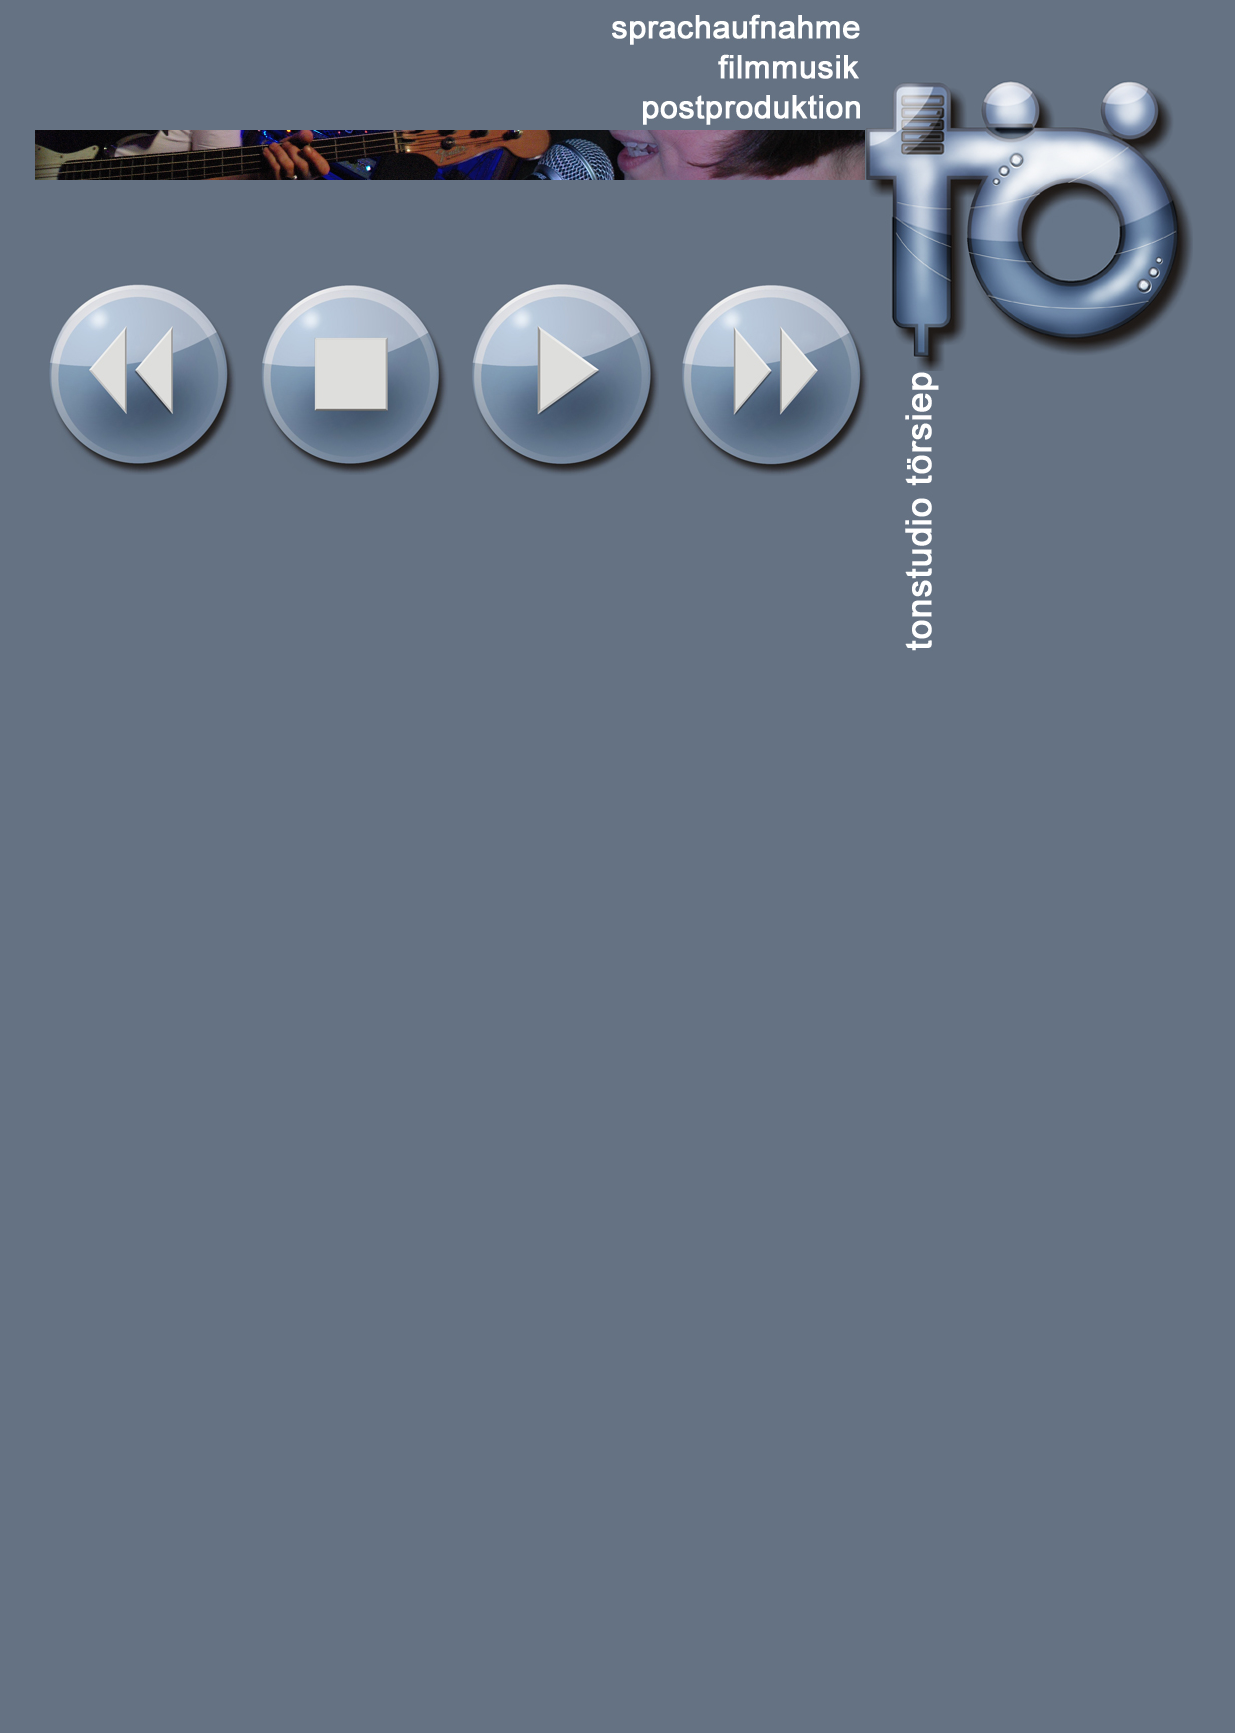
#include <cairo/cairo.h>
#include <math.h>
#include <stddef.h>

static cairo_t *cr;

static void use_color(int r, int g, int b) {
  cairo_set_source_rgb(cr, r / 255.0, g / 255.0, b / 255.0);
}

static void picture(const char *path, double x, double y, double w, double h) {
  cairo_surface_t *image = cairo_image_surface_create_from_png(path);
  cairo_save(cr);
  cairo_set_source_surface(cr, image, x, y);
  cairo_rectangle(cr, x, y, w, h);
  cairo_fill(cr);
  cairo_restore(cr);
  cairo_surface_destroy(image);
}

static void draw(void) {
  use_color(101, 114, 131);
  cairo_paint(cr);
  picture("img_01.png", 612, 14, 248, 31);
  picture("img_02.png", 718, 54, 141, 25);
  picture("img_03.png", 643, 95, 217, 30);
  picture("img_04.png", 877, 80, 316, 291);
  picture("img_05.png", 35, 130, 830, 50);
  picture("img_06.png", 865, 128, 12, 69);
  picture("img_07.png", 48, 283, 188, 192);
  picture("img_08.png", 261, 284, 187, 191);
  picture("img_09.png", 472, 283, 187, 193);
  picture("img_10.png", 682, 284, 187, 192);
  picture("img_11.png", 905, 372, 34, 279);
}

int main(void) {
  cairo_surface_t *surface = cairo_image_surface_create(CAIRO_FORMAT_RGB24, 1235, 1733);
  cr = cairo_create(surface);
  cairo_font_options_t *options = cairo_font_options_create();
  cairo_font_options_set_hint_metrics(options, CAIRO_HINT_METRICS_OFF);
  cairo_font_options_set_hint_style(options, CAIRO_HINT_STYLE_NONE);
  cairo_set_font_options(cr, options);
  cairo_set_miter_limit(cr, 4);
  draw();
  cairo_surface_write_to_png(surface, "out.png");
  cairo_font_options_destroy(options);
  cairo_destroy(cr);
  cairo_surface_destroy(surface);
  return 0;
}
